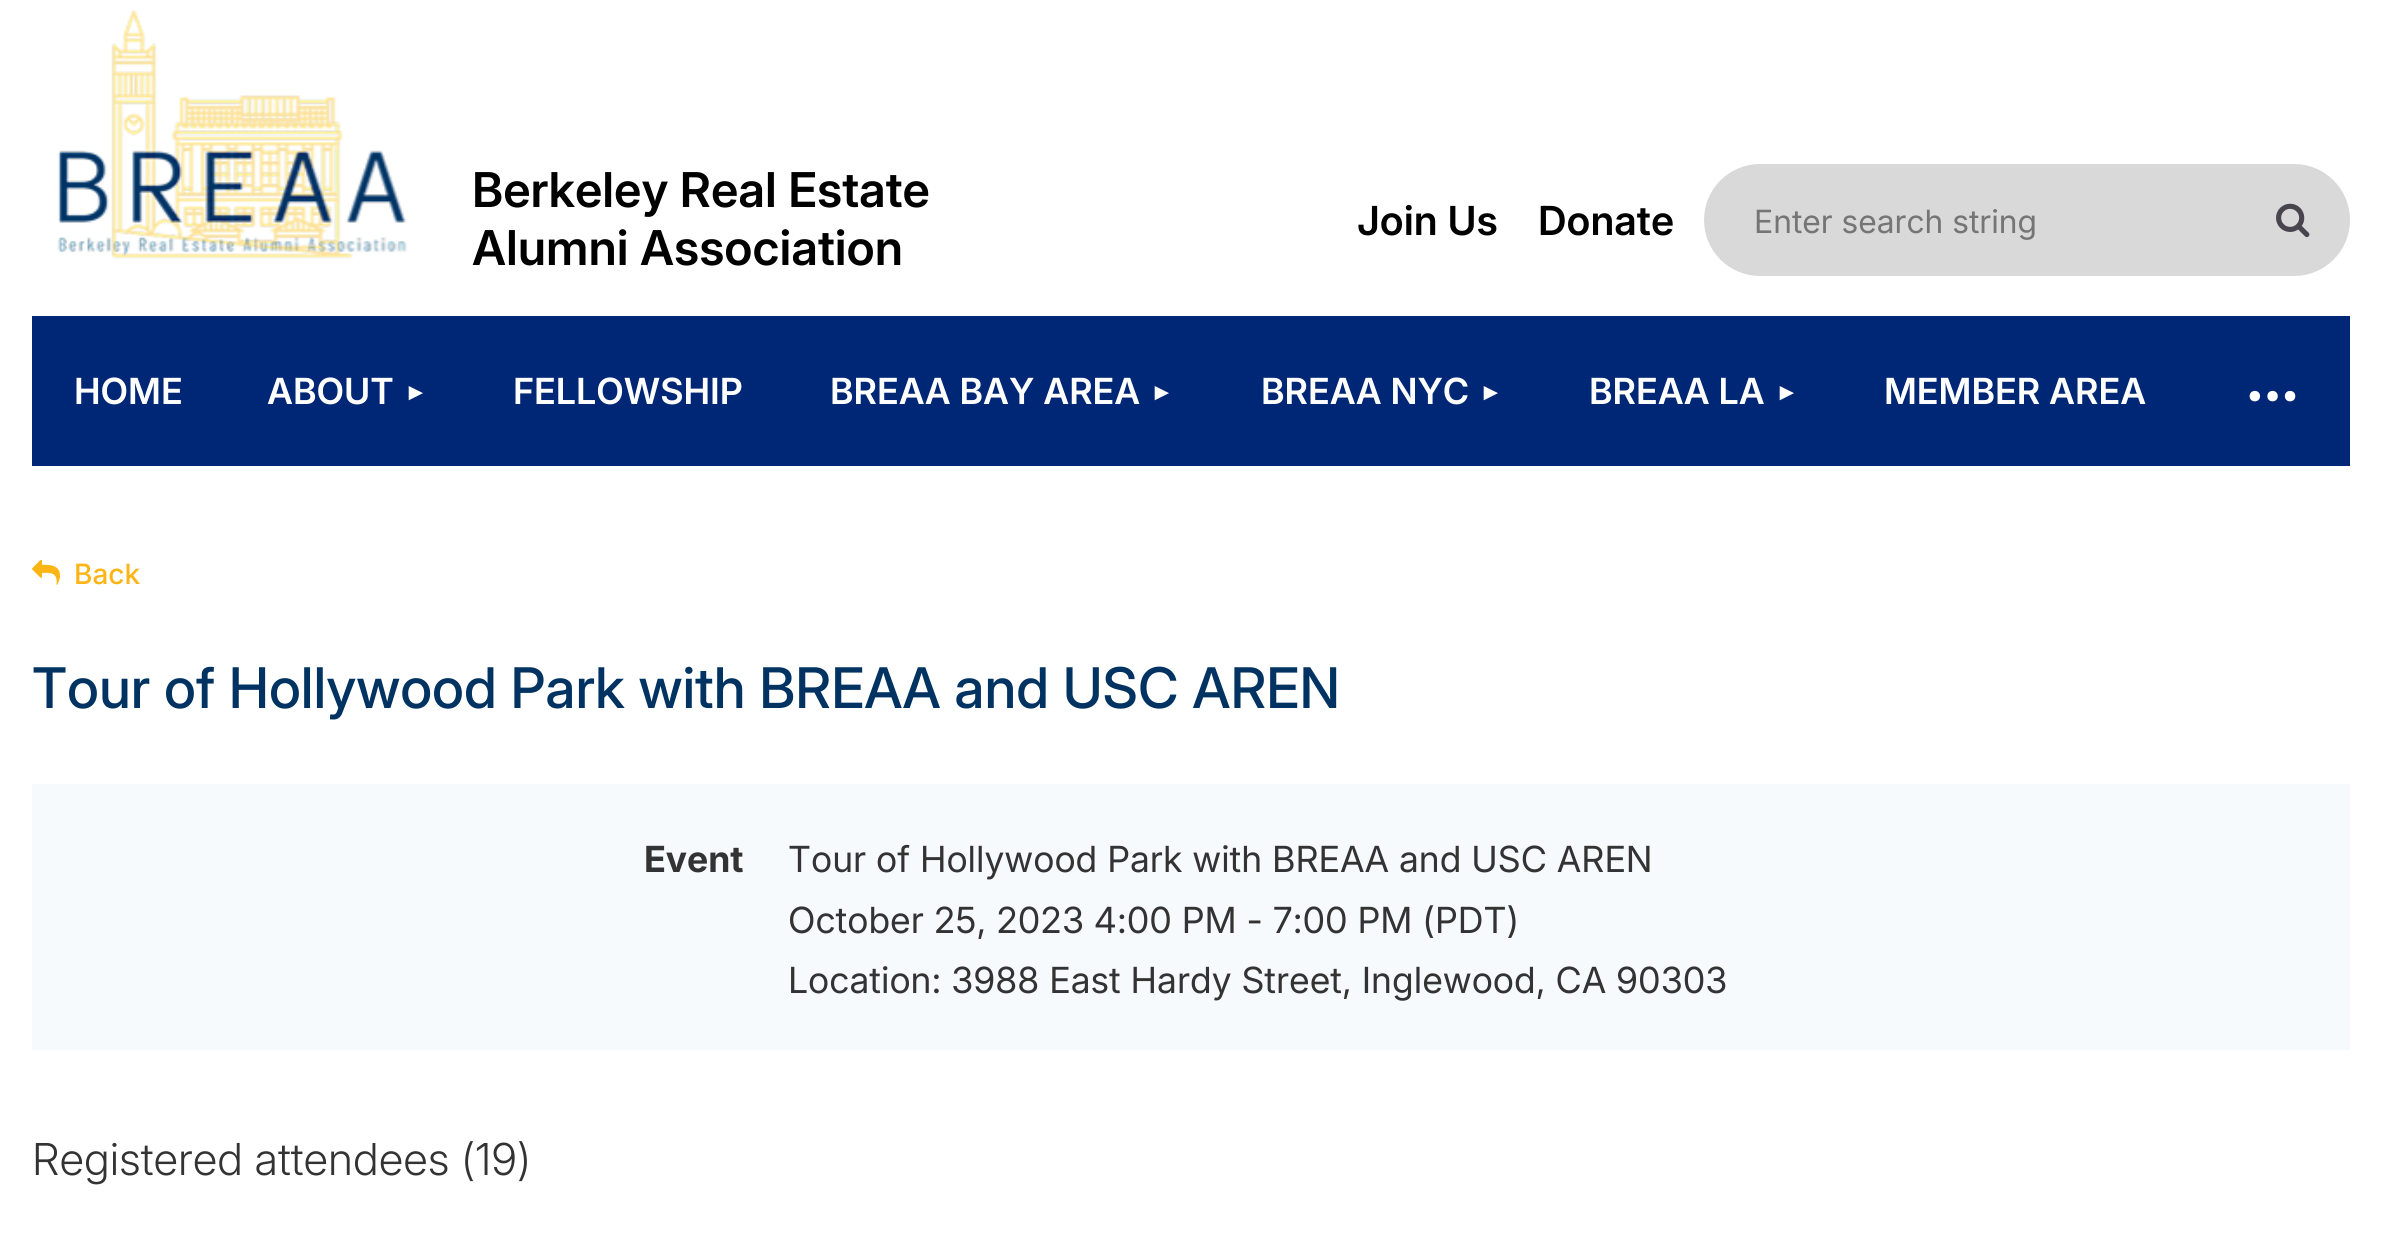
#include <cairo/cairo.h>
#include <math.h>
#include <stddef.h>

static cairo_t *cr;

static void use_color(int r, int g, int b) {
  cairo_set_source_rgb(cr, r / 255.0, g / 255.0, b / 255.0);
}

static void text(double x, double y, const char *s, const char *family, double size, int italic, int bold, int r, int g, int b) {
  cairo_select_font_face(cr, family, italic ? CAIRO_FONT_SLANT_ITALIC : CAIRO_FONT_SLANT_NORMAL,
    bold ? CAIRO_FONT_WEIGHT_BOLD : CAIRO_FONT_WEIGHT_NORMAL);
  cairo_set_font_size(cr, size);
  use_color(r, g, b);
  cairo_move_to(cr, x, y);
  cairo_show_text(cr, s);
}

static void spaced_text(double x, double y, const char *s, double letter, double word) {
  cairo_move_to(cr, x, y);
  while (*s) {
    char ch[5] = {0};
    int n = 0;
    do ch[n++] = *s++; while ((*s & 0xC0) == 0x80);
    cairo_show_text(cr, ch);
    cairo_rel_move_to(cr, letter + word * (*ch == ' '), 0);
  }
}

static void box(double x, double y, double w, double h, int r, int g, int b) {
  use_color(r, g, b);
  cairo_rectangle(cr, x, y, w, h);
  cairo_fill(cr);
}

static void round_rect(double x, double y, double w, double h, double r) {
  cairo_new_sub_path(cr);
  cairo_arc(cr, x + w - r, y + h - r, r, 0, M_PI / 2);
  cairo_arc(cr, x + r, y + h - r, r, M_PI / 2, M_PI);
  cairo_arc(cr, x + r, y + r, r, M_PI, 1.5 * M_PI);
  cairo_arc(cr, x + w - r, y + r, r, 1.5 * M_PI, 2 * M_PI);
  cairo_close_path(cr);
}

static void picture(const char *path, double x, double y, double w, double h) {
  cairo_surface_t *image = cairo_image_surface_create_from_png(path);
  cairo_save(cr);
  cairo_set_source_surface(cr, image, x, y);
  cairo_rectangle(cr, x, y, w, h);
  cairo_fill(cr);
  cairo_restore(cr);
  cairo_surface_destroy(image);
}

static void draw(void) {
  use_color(255, 255, 255);
  cairo_paint(cr);
  picture("img_01.png", 57, 10, 350, 249);
  use_color(217, 217, 217);
  round_rect(1704, 164, 646, 112, 56);
  cairo_fill(cr);
  picture("img_02.png", 2276, 203, 34, 35);
  box(32, 316, 2318, 150, 0, 38, 118);
  picture("img_03.png", 32, 559, 28, 26);
  box(32, 784, 2318, 266, 246, 250, 253);
  text(472, 207, "Berkeley Real Estate", "Inter SemiBold", 48, 0, 0, 0, 0, 0);
  text(472, 265, "Alumni Association", "Inter SemiBold", 48, 0, 0, 0, 0, 0);
  text(1357, 235, "Join Us", "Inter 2 SemiBold", 40, 0, 0, 0, 0, 0);
  text(1538, 235, "Donate", "Inter 2 SemiBold", 40, 0, 0, 0, 0, 0);
  text(1754, 233, "Enter search string", "Inter 2", 32, 0, 0, 117, 117, 117);
  text(74, 404, "HOME", "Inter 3 SemiBold", 36, 0, 0, 255, 255, 255);
  text(267, 404, "ABOUT", "Inter 3 SemiBold", 36, 0, 0, 255, 255, 255);
  text(404, 400, "►", "Liberation Sans", 24, 0, 0, 255, 255, 255);
  text(513, 404, "FELLOWSHIP", "Inter 3 SemiBold", 36, 0, 0, 255, 255, 255);
  text(830, 404, "BREAA BAY AREA", "Inter 3 SemiBold", 36, 0, 0, 255, 255, 255);
  text(1150, 400, "►", "Liberation Sans", 24, 0, 0, 255, 255, 255);
  text(1261, 404, "BREAA NYC", "Inter 3 SemiBold", 36, 0, 0, 255, 255, 255);
  text(1479, 400, "►", "Liberation Sans", 24, 0, 0, 255, 255, 255);
  text(1589, 404, "BREAA LA", "Inter 3 SemiBold", 36, 0, 0, 255, 255, 255);
  text(1775, 400, "►", "Liberation Sans", 24, 0, 0, 255, 255, 255);
  text(1884, 404, "MEMBER AREA", "Inter 3 SemiBold", 36, 0, 0, 255, 255, 255);
  cairo_select_font_face(cr, "Ubuntu", CAIRO_FONT_SLANT_NORMAL, CAIRO_FONT_WEIGHT_NORMAL);
  cairo_set_font_size(cr, 88);
  spaced_text(2244, 422, "···", -4, 0);
  text(74, 584, "Back", "Inter 2 Medium", 28, 0, 0, 253, 181, 21);
  text(32, 708, "Tour of Hollywood Park with BREAA and USC AREN", "Inter Medium", 56, 0, 0, 0, 50, 98);
  text(644, 872, "Event", "Inter", 36, 0, 1, 51, 51, 51);
  text(788, 872, "Tour of Hollywood Park with BREAA and USC AREN", "Inter", 36, 0, 0, 51, 51, 51);
  text(788, 933, "October 25, 2023 4:00 PM - 7:00 PM (PDT)", "Inter", 36, 0, 0, 51, 51, 51);
  text(788, 993, "Location: 3988 East Hardy Street, Inglewood, CA 90303", "Inter", 36, 0, 0, 51, 51, 51);
  text(32, 1175, "Registered attendees (19)", "Inter Light", 44, 0, 0, 51, 51, 51);
}

int main(void) {
  cairo_surface_t *surface = cairo_image_surface_create(CAIRO_FORMAT_RGB24, 2382, 1245);
  cr = cairo_create(surface);
  cairo_font_options_t *options = cairo_font_options_create();
  cairo_font_options_set_hint_metrics(options, CAIRO_HINT_METRICS_OFF);
  cairo_font_options_set_hint_style(options, CAIRO_HINT_STYLE_NONE);
  cairo_set_font_options(cr, options);
  cairo_set_miter_limit(cr, 4);
  draw();
  cairo_surface_write_to_png(surface, "out.png");
  cairo_font_options_destroy(options);
  cairo_destroy(cr);
  cairo_surface_destroy(surface);
  return 0;
}
